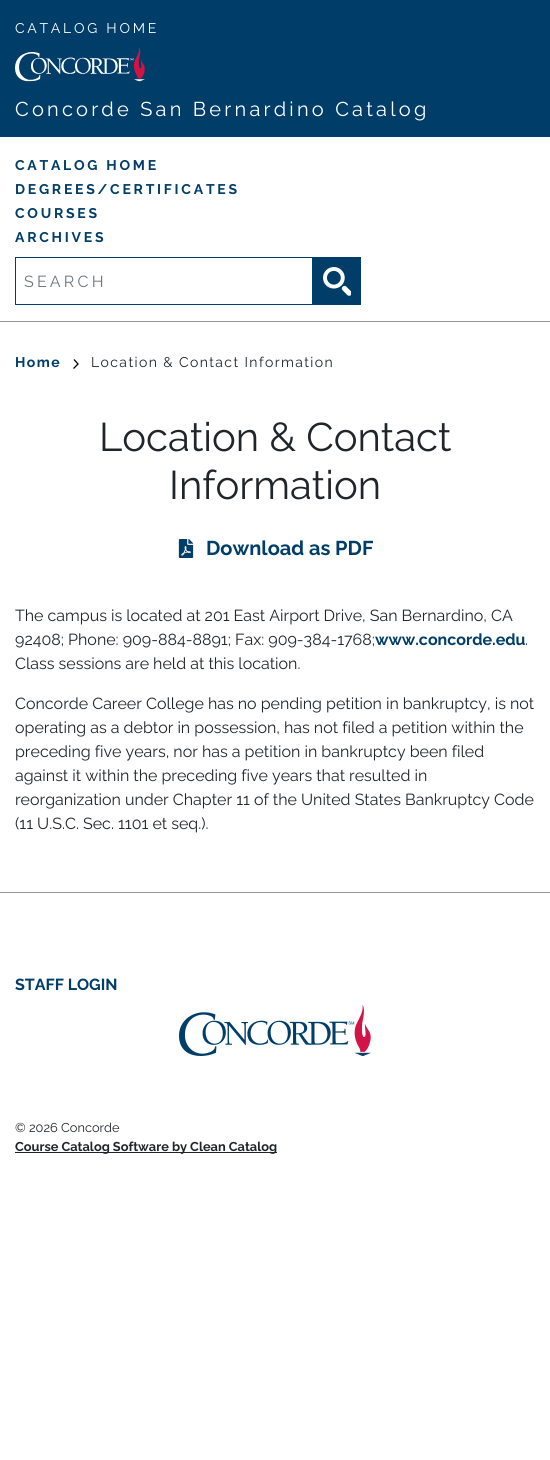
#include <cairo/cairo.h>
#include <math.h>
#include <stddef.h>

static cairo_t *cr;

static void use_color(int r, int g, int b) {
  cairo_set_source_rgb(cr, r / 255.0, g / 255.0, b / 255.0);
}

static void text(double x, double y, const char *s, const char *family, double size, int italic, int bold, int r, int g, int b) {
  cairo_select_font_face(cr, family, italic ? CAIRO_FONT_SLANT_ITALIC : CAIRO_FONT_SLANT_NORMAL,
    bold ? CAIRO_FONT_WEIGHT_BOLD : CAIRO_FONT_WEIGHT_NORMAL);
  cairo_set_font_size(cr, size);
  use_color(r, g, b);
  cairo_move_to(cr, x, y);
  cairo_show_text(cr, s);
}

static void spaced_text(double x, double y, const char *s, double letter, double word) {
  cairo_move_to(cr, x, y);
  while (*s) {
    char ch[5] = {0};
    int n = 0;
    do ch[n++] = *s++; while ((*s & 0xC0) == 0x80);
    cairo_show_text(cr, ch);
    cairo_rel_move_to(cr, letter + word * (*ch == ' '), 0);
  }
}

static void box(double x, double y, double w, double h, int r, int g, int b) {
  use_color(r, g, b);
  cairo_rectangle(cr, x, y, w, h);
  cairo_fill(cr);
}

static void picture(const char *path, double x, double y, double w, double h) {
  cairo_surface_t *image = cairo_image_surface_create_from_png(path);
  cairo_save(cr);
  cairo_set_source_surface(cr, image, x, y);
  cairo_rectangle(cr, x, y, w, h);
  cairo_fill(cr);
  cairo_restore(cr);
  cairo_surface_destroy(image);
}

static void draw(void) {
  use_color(255, 255, 255);
  cairo_paint(cr);
  box(0, 0, 550, 137, 0, 62, 105);
  picture("img_01.png", 15, 47, 130, 35);
  box(0, 321, 550, 1, 151, 151, 151);
  cairo_rectangle(cr, 15.5, 257.5, 297, 47);
  use_color(0, 62, 105);
  cairo_set_line_width(cr, 1);
  cairo_stroke(cr);
  box(313, 257, 48, 48, 0, 62, 105);
  picture("img_02.png", 323, 267, 28, 29);
  cairo_new_path(cr);
  cairo_move_to(cr, 73.5, 368.5);
  cairo_line_to(cr, 78, 364);
  cairo_line_to(cr, 74, 359.5);
  use_color(0, 0, 0);
  cairo_set_line_width(cr, 1.3);
  cairo_stroke(cr);
  picture("img_03.png", 178, 539, 16, 19);
  box(0, 892, 550, 1, 151, 151, 151);
  picture("img_04.png", 179, 1005, 192, 51);
  box(15, 1152, 262, 1, 33, 37, 41);
  cairo_select_font_face(cr, "Raleway", CAIRO_FONT_SLANT_NORMAL, CAIRO_FONT_WEIGHT_NORMAL);
  cairo_set_font_size(cr, 14);
  use_color(255, 255, 255);
  spaced_text(15, 33, "CATALOG HOME", 2.75, 0);
  cairo_set_font_size(cr, 20);
  spaced_text(15, 116, "Concorde San Bernardino Catalog", 3.2, 0);
  cairo_select_font_face(cr, "Raleway", CAIRO_FONT_SLANT_NORMAL, CAIRO_FONT_WEIGHT_BOLD);
  cairo_set_font_size(cr, 14);
  use_color(0, 62, 105);
  spaced_text(15, 170, "CATALOG HOME", 2.75, 0);
  spaced_text(15, 194, "DEGREES/CERTIFICATES", 2.75, 0);
  spaced_text(15, 218, "COURSES", 2.75, 0);
  spaced_text(15, 242, "ARCHIVES", 2.75, 0);
  cairo_select_font_face(cr, "Raleway", CAIRO_FONT_SLANT_NORMAL, CAIRO_FONT_WEIGHT_NORMAL);
  cairo_set_font_size(cr, 16);
  use_color(108, 117, 125);
  spaced_text(24, 287, "SEARCH", 3.2, 0);
  cairo_select_font_face(cr, "Raleway", CAIRO_FONT_SLANT_NORMAL, CAIRO_FONT_WEIGHT_BOLD);
  cairo_set_font_size(cr, 14);
  use_color(0, 62, 105);
  spaced_text(15, 367, "Home", 1.4, 0);
  cairo_select_font_face(cr, "Raleway", CAIRO_FONT_SLANT_NORMAL, CAIRO_FONT_WEIGHT_NORMAL);
  use_color(33, 37, 41);
  spaced_text(91, 367, "Location & Contact Information", 1.4, 0);
  text(99, 451, "Location & Contact", "Raleway", 40, 0, 0, 33, 37, 41);
  text(169, 499, "Information", "Raleway", 40, 0, 0, 33, 37, 41);
  text(206, 555, "Download as PDF", "Raleway", 20, 0, 1, 0, 62, 105);
  text(15, 621, "The campus is located at 201 East Airport Drive, San Bernardino, CA", "Raleway", 16, 0, 0, 33, 37, 41);
  text(15, 645, "92408; Phone: 909-884-8891; Fax: 909-384-1768;", "Raleway", 16, 0, 0, 33, 37, 41);
  text(375, 645, "www.concorde.edu", "Raleway", 16, 0, 1, 0, 62, 105);
  text(525, 645, ".", "Raleway", 16, 0, 0, 33, 37, 41);
  text(15, 669, "Class sessions are held at this location.", "Raleway", 16, 0, 0, 33, 37, 41);
  text(15, 709, "Concorde Career College has no pending petition in bankruptcy, is not", "Raleway", 16, 0, 0, 33, 37, 41);
  text(15, 733, "operating as a debtor in possession, has not filed a petition within the", "Raleway", 16, 0, 0, 33, 37, 41);
  text(15, 757, "preceding five years, nor has a petition in bankruptcy been filed", "Raleway", 16, 0, 0, 33, 37, 41);
  text(15, 781, "against it within the preceding five years that resulted in", "Raleway", 16, 0, 0, 33, 37, 41);
  text(15, 805, "reorganization under Chapter 11 of the United States Bankruptcy Code", "Raleway", 16, 0, 0, 33, 37, 41);
  text(15, 829, "(11 U.S.C. Sec. 1101 et seq.).", "Raleway", 16, 0, 0, 33, 37, 41);
  text(15, 990, "STAFF LOGIN", "Raleway", 16, 0, 1, 0, 62, 105);
  text(15, 1132, "© 2026 Concorde", "Raleway", 12.8, 0, 0, 33, 37, 41);
  text(15, 1151, "Course Catalog Software by Clean Catalog", "Raleway", 12.8, 0, 1, 33, 37, 41);
}

int main(void) {
  cairo_surface_t *surface = cairo_image_surface_create(CAIRO_FORMAT_RGB24, 550, 1460);
  cr = cairo_create(surface);
  cairo_font_options_t *options = cairo_font_options_create();
  cairo_font_options_set_hint_metrics(options, CAIRO_HINT_METRICS_OFF);
  cairo_font_options_set_hint_style(options, CAIRO_HINT_STYLE_NONE);
  cairo_set_font_options(cr, options);
  cairo_set_miter_limit(cr, 4);
  draw();
  cairo_surface_write_to_png(surface, "out.png");
  cairo_font_options_destroy(options);
  cairo_destroy(cr);
  cairo_surface_destroy(surface);
  return 0;
}
